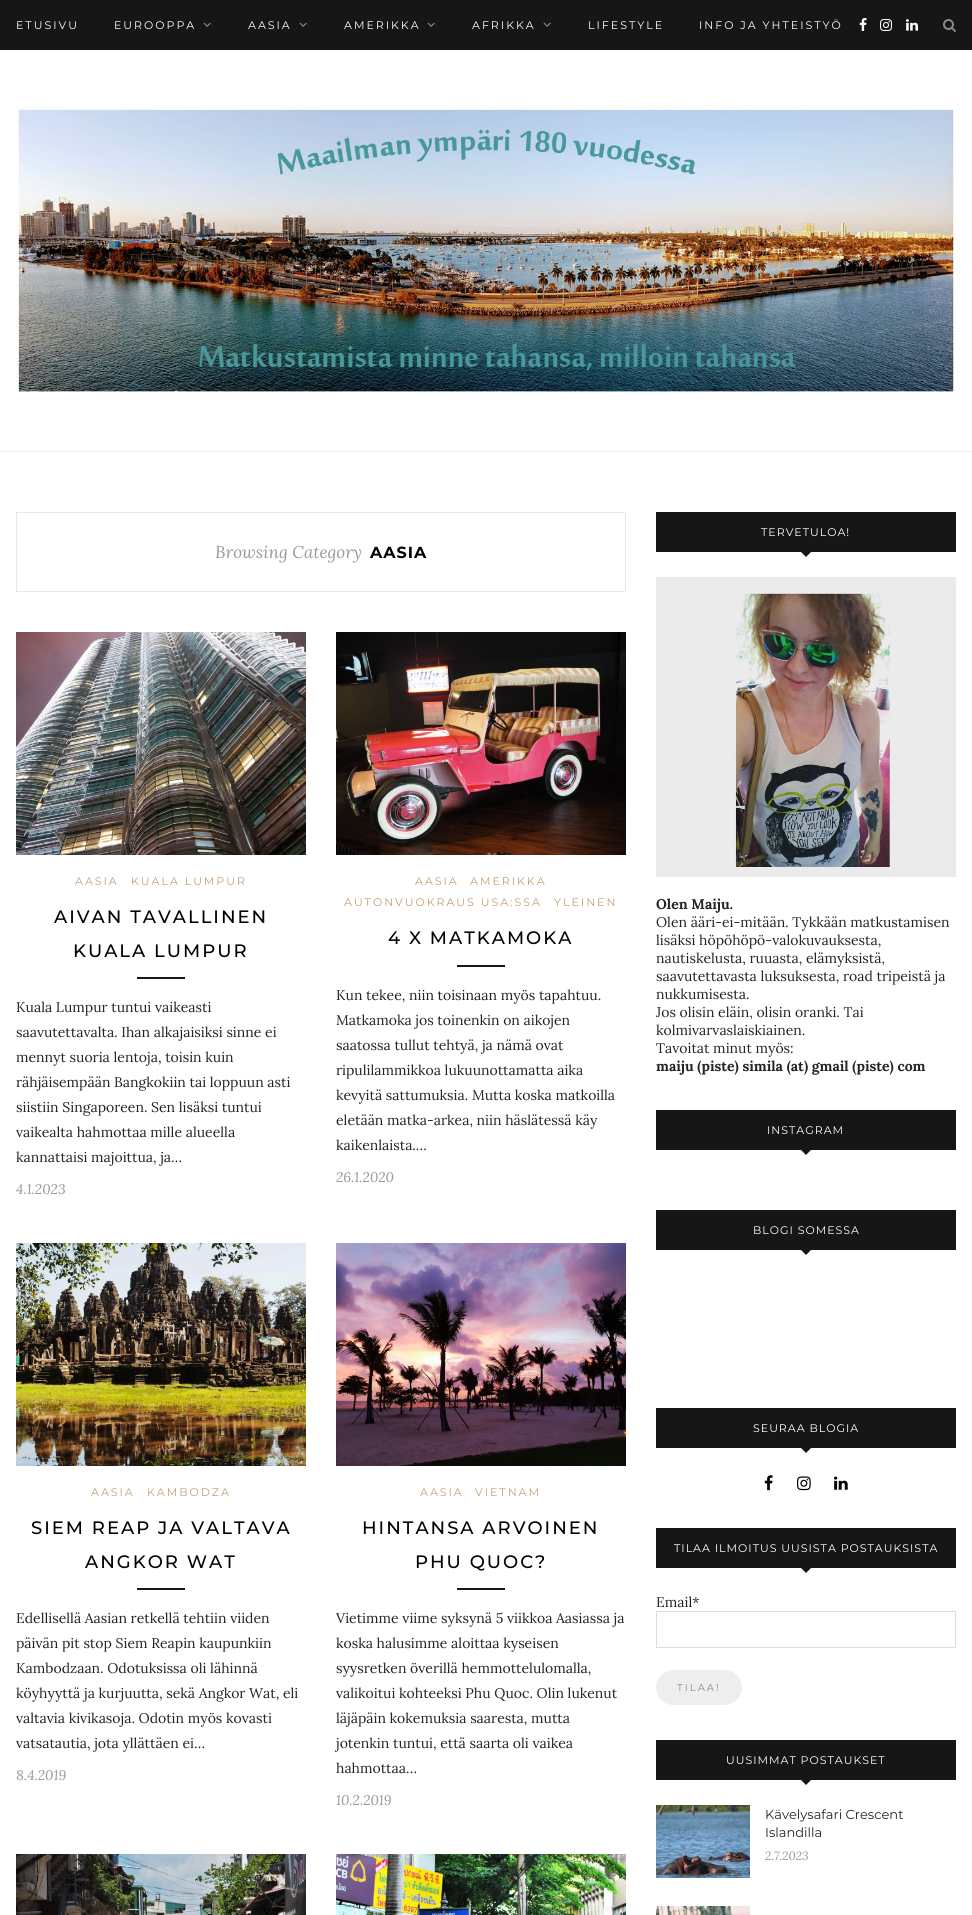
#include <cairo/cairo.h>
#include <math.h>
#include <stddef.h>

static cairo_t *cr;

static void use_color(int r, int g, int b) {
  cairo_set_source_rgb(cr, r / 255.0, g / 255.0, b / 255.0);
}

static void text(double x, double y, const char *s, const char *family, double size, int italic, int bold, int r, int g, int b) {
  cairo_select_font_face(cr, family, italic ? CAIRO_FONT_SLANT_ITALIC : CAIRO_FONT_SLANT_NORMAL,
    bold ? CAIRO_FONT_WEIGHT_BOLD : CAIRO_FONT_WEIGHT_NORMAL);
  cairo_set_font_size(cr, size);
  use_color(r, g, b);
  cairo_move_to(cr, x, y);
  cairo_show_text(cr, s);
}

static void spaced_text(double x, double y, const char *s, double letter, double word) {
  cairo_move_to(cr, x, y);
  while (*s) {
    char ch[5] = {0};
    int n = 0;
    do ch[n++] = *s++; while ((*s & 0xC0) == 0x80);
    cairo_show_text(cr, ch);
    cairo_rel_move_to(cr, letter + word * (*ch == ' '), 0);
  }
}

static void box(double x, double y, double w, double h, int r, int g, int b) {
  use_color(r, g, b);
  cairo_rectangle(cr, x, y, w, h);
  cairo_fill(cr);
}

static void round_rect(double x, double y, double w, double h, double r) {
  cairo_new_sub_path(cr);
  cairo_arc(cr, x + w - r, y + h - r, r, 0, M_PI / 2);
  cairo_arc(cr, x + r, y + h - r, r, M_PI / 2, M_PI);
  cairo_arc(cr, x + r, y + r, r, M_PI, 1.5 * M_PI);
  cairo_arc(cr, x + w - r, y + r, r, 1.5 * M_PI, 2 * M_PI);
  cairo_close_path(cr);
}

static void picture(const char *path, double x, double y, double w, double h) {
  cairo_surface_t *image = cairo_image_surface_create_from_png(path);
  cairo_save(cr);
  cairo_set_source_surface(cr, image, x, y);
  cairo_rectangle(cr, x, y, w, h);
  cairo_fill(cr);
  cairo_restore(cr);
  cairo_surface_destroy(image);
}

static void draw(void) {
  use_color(255, 255, 255);
  cairo_paint(cr);
  box(0, 0, 972, 50, 22, 22, 22);
  picture("img_01.png", 203, 22, 8, 5);
  picture("img_01.png", 299, 22, 8, 5);
  picture("img_01.png", 427, 22, 8, 5);
  picture("img_01.png", 543, 22, 8, 5);
  picture("img_02.png", 859, 18, 8, 13);
  picture("img_03.png", 880, 19, 12, 12);
  picture("img_04.png", 906, 19, 12, 12);
  picture("img_05.png", 943, 19, 13, 13);
  box(0, 451, 972, 1, 238, 238, 238);
  picture("img_06.png", 16, 106, 938, 286);
  cairo_rectangle(cr, 16.5, 512.5, 609, 79);
  use_color(232, 232, 232);
  cairo_set_line_width(cr, 1);
  cairo_stroke(cr);
  picture("img_07.png", 16, 632, 290, 223);
  box(137, 977, 48, 2, 22, 22, 22);
  picture("img_08.png", 336, 632, 290, 223);
  box(457, 965, 48, 2, 22, 22, 22);
  picture("img_09.png", 16, 1243, 290, 223);
  box(137, 1588, 48, 2, 22, 22, 22);
  picture("img_10.png", 336, 1243, 290, 223);
  box(457, 1588, 48, 2, 22, 22, 22);
  picture("img_11.png", 16, 1854, 290, 61);
  picture("img_12.png", 336, 1854, 290, 61);
  box(656, 512, 300, 40, 22, 22, 22);
  cairo_new_path(cr);
  cairo_move_to(cr, 801, 552);
  cairo_line_to(cr, 811, 552);
  cairo_line_to(cr, 806, 557);
  cairo_close_path(cr);
  cairo_fill(cr);
  picture("img_13.png", 656, 577, 300, 300);
  box(656, 1110, 300, 40, 22, 22, 22);
  cairo_new_path(cr);
  cairo_move_to(cr, 801, 1150);
  cairo_line_to(cr, 811, 1150);
  cairo_line_to(cr, 806, 1155);
  cairo_close_path(cr);
  cairo_fill(cr);
  box(656, 1210, 300, 40, 22, 22, 22);
  cairo_new_path(cr);
  cairo_move_to(cr, 801, 1250);
  cairo_line_to(cr, 811, 1250);
  cairo_line_to(cr, 806, 1255);
  cairo_close_path(cr);
  cairo_fill(cr);
  box(656, 1408, 300, 40, 22, 22, 22);
  cairo_new_path(cr);
  cairo_move_to(cr, 801, 1448);
  cairo_line_to(cr, 811, 1448);
  cairo_line_to(cr, 806, 1453);
  cairo_close_path(cr);
  cairo_fill(cr);
  picture("img_14.png", 764, 1475, 9, 16);
  picture("img_15.png", 797, 1476, 14, 15);
  picture("img_16.png", 834, 1476, 14, 14);
  box(656, 1528, 300, 40, 22, 22, 22);
  cairo_new_path(cr);
  cairo_move_to(cr, 801, 1568);
  cairo_line_to(cr, 811, 1568);
  cairo_line_to(cr, 806, 1573);
  cairo_close_path(cr);
  cairo_fill(cr);
  cairo_rectangle(cr, 656.5, 1611.5, 299, 36);
  use_color(221, 221, 221);
  cairo_stroke(cr);
  use_color(238, 238, 238);
  round_rect(656, 1670, 86, 35, 17.5);
  cairo_fill(cr);
  box(656, 1740, 300, 40, 22, 22, 22);
  cairo_new_path(cr);
  cairo_move_to(cr, 801, 1780);
  cairo_line_to(cr, 811, 1780);
  cairo_line_to(cr, 806, 1785);
  cairo_close_path(cr);
  cairo_fill(cr);
  picture("img_17.png", 656, 1805, 94, 73);
  picture("img_18.png", 656, 1906, 94, 9);
  cairo_select_font_face(cr, "Montserrat", CAIRO_FONT_SLANT_NORMAL, CAIRO_FONT_WEIGHT_NORMAL);
  cairo_set_font_size(cr, 11);
  use_color(255, 255, 255);
  spaced_text(16, 29, "ETUSIVU", 2, 0);
  spaced_text(114, 29, "EUROOPPA", 2, 0);
  spaced_text(248, 29, "AASIA", 2, 0);
  spaced_text(344, 29, "AMERIKKA", 2, 0);
  spaced_text(472, 29, "AFRIKKA", 2, 0);
  spaced_text(588, 29, "LIFESTYLE", 2, 0);
  spaced_text(699, 29, "INFO JA YHTEISTYÖ", 2, 0);
  text(215, 558, "Browsing Category", "Lora", 17, 1, 0, 153, 153, 153);
  cairo_select_font_face(cr, "Montserrat", CAIRO_FONT_SLANT_NORMAL, CAIRO_FONT_WEIGHT_BOLD);
  cairo_set_font_size(cr, 16);
  use_color(0, 0, 0);
  spaced_text(370, 558, "AASIA", 1, 0);
  cairo_select_font_face(cr, "Montserrat", CAIRO_FONT_SLANT_NORMAL, CAIRO_FONT_WEIGHT_NORMAL);
  cairo_set_font_size(cr, 11);
  use_color(195, 159, 118);
  spaced_text(75, 885, "AASIA", 2, 0);
  spaced_text(131, 885, "KUALA LUMPUR", 2, 0);
  cairo_select_font_face(cr, "Montserrat Medium", CAIRO_FONT_SLANT_NORMAL, CAIRO_FONT_WEIGHT_NORMAL);
  cairo_set_font_size(cr, 18);
  use_color(0, 0, 0);
  spaced_text(54, 923, "AIVAN TAVALLINEN", 2, 0);
  spaced_text(73, 957, "KUALA LUMPUR", 2, 0);
  text(16, 1012, "Kuala Lumpur tuntui vaikeasti", "Lora", 14, 0, 0, 36, 36, 36);
  text(16, 1037, "saavutettavalta. Ihan alkajaisiksi sinne ei", "Lora", 14, 0, 0, 36, 36, 36);
  text(16, 1062, "mennyt suoria lentoja, toisin kuin", "Lora", 14, 0, 0, 36, 36, 36);
  text(16, 1087, "rähjäisempään Bangkokiin tai loppuun asti", "Lora", 14, 0, 0, 36, 36, 36);
  text(16, 1112, "siistiin Singaporeen. Sen lisäksi tuntui", "Lora", 14, 0, 0, 36, 36, 36);
  text(16, 1137, "vaikealta hahmottaa mille alueella", "Lora", 14, 0, 0, 36, 36, 36);
  text(16, 1162, "kannattaisi majoittua, ja…", "Lora", 14, 0, 0, 36, 36, 36);
  text(16, 1194, "4.1.2023", "Lora", 14, 1, 0, 153, 153, 153);
  cairo_select_font_face(cr, "Montserrat", CAIRO_FONT_SLANT_NORMAL, CAIRO_FONT_WEIGHT_NORMAL);
  cairo_set_font_size(cr, 11);
  use_color(195, 159, 118);
  spaced_text(415, 885, "AASIA", 2, 0);
  spaced_text(470, 885, "AMERIKKA", 2, 0);
  spaced_text(344, 906, "AUTONVUOKRAUS USA:SSA", 2, 0);
  spaced_text(554, 906, "YLEINEN", 2, 0);
  cairo_select_font_face(cr, "Montserrat Medium", CAIRO_FONT_SLANT_NORMAL, CAIRO_FONT_WEIGHT_NORMAL);
  cairo_set_font_size(cr, 18);
  use_color(0, 0, 0);
  spaced_text(388, 944, "4 X MATKAMOKA", 2, 0);
  text(336, 1000, "Kun tekee, niin toisinaan myös tapahtuu.", "Lora", 14, 0, 0, 36, 36, 36);
  text(336, 1025, "Matkamoka jos toinenkin on aikojen", "Lora", 14, 0, 0, 36, 36, 36);
  text(336, 1050, "saatossa tullut tehtyä, ja nämä ovat", "Lora", 14, 0, 0, 36, 36, 36);
  text(336, 1075, "ripulilammikkoa lukuunottamatta aika", "Lora", 14, 0, 0, 36, 36, 36);
  text(336, 1100, "kevyitä sattumuksia. Mutta koska matkoilla", "Lora", 14, 0, 0, 36, 36, 36);
  text(336, 1125, "eletään matka-arkea, niin häslätessä käy", "Lora", 14, 0, 0, 36, 36, 36);
  text(336, 1150, "kaikenlaista.…", "Lora", 14, 0, 0, 36, 36, 36);
  text(336, 1182, "26.1.2020", "Lora", 14, 1, 0, 153, 153, 153);
  cairo_select_font_face(cr, "Montserrat", CAIRO_FONT_SLANT_NORMAL, CAIRO_FONT_WEIGHT_NORMAL);
  cairo_set_font_size(cr, 11);
  use_color(195, 159, 118);
  spaced_text(91, 1496, "AASIA", 2, 0);
  spaced_text(147, 1496, "KAMBODZA", 2, 0);
  cairo_select_font_face(cr, "Montserrat Medium", CAIRO_FONT_SLANT_NORMAL, CAIRO_FONT_WEIGHT_NORMAL);
  cairo_set_font_size(cr, 18);
  use_color(0, 0, 0);
  spaced_text(31, 1534, "SIEM REAP JA VALTAVA", 2, 0);
  spaced_text(85, 1568, "ANGKOR WAT", 2, 0);
  text(16, 1623, "Edellisellä Aasian retkellä tehtiin viiden", "Lora", 14, 0, 0, 36, 36, 36);
  text(16, 1648, "päivän pit stop Siem Reapin kaupunkiin", "Lora", 14, 0, 0, 36, 36, 36);
  text(16, 1673, "Kambodzaan. Odotuksissa oli lähinnä", "Lora", 14, 0, 0, 36, 36, 36);
  text(16, 1698, "köyhyyttä ja kurjuutta, sekä Angkor Wat, eli", "Lora", 14, 0, 0, 36, 36, 36);
  text(16, 1723, "valtavia kivikasoja. Odotin myös kovasti", "Lora", 14, 0, 0, 36, 36, 36);
  text(16, 1748, "vatsatautia, jota yllättäen ei…", "Lora", 14, 0, 0, 36, 36, 36);
  text(16, 1780, "8.4.2019", "Lora", 14, 1, 0, 153, 153, 153);
  cairo_select_font_face(cr, "Montserrat", CAIRO_FONT_SLANT_NORMAL, CAIRO_FONT_WEIGHT_NORMAL);
  cairo_set_font_size(cr, 11);
  use_color(195, 159, 118);
  spaced_text(420, 1496, "AASIA", 2, 0);
  spaced_text(475, 1496, "VIETNAM", 2, 0);
  cairo_select_font_face(cr, "Montserrat Medium", CAIRO_FONT_SLANT_NORMAL, CAIRO_FONT_WEIGHT_NORMAL);
  cairo_set_font_size(cr, 18);
  use_color(0, 0, 0);
  spaced_text(362, 1534, "HINTANSA ARVOINEN", 2, 0);
  spaced_text(415, 1568, "PHU QUOC?", 2, 0);
  text(336, 1623, "Vietimme viime syksynä 5 viikkoa Aasiassa ja", "Lora", 14, 0, 0, 36, 36, 36);
  text(336, 1648, "koska halusimme aloittaa kyseisen", "Lora", 14, 0, 0, 36, 36, 36);
  text(336, 1673, "syysretken överillä hemmottelulomalla,", "Lora", 14, 0, 0, 36, 36, 36);
  text(336, 1698, "valikoitui kohteeksi Phu Quoc. Olin lukenut", "Lora", 14, 0, 0, 36, 36, 36);
  text(336, 1723, "läjäpäin kokemuksia saaresta, mutta", "Lora", 14, 0, 0, 36, 36, 36);
  text(336, 1748, "jotenkin tuntui, että saarta oli vaikea", "Lora", 14, 0, 0, 36, 36, 36);
  text(336, 1773, "hahmottaa…", "Lora", 14, 0, 0, 36, 36, 36);
  text(336, 1805, "10.2.2019", "Lora", 14, 1, 0, 153, 153, 153);
  cairo_select_font_face(cr, "Montserrat", CAIRO_FONT_SLANT_NORMAL, CAIRO_FONT_WEIGHT_NORMAL);
  cairo_set_font_size(cr, 11);
  use_color(255, 255, 255);
  spaced_text(761, 536, "TERVETULOA!", 1, 0);
  text(656, 909, "Olen Maiju.", "Lora", 14, 0, 1, 36, 36, 36);
  text(656, 927, "Olen ääri-ei-mitään. Tykkään matkustamisen", "Lora", 14, 0, 0, 36, 36, 36);
  text(656, 945, "lisäksi höpöhöpö-valokuvauksesta,", "Lora", 14, 0, 0, 36, 36, 36);
  text(656, 963, "nautiskelusta, ruuasta, elämyksistä,", "Lora", 14, 0, 0, 36, 36, 36);
  text(656, 981, "saavutettavasta luksuksesta, road tripeistä ja", "Lora", 14, 0, 0, 36, 36, 36);
  text(656, 999, "nukkumisesta.", "Lora", 14, 0, 0, 36, 36, 36);
  text(656, 1017, "Jos olisin eläin, olisin oranki. Tai", "Lora", 14, 0, 0, 36, 36, 36);
  text(656, 1035, "kolmivarvaslaiskiainen.", "Lora", 14, 0, 0, 36, 36, 36);
  text(656, 1053, "Tavoitat minut myös:", "Lora", 14, 0, 0, 36, 36, 36);
  text(656, 1071, "maiju (piste) simila (at) gmail (piste) com", "Lora", 14, 0, 1, 36, 36, 36);
  cairo_select_font_face(cr, "Montserrat", CAIRO_FONT_SLANT_NORMAL, CAIRO_FONT_WEIGHT_NORMAL);
  cairo_set_font_size(cr, 11);
  use_color(255, 255, 255);
  spaced_text(767, 1134, "INSTAGRAM", 1, 0);
  spaced_text(753, 1234, "BLOGI SOMESSA", 1, 0);
  spaced_text(753, 1432, "SEURAA BLOGIA", 1, 0);
  spaced_text(674, 1552, "TILAA ILMOITUS UUSISTA POSTAUKSISTA", 1, 0);
  text(656, 1607, "Email*", "Lora", 14, 0, 0, 36, 36, 36);
  cairo_select_font_face(cr, "Montserrat", CAIRO_FONT_SLANT_NORMAL, CAIRO_FONT_WEIGHT_NORMAL);
  cairo_set_font_size(cr, 10);
  use_color(136, 136, 136);
  spaced_text(677, 1691, "TILAA!", 2, 0);
  cairo_set_font_size(cr, 11);
  use_color(255, 255, 255);
  spaced_text(726, 1764, "UUSIMMAT POSTAUKSET", 1, 0);
  text(765, 1819, "Kävelysafari Crescent", "Montserrat", 13, 0, 0, 36, 36, 36);
  text(765, 1837, "Islandilla", "Montserrat", 13, 0, 0, 36, 36, 36);
  text(765, 1860, "2.7.2023", "Lora", 12, 1, 0, 153, 153, 153);
}

int main(void) {
  cairo_surface_t *surface = cairo_image_surface_create(CAIRO_FORMAT_RGB24, 972, 1915);
  cr = cairo_create(surface);
  cairo_font_options_t *options = cairo_font_options_create();
  cairo_font_options_set_hint_metrics(options, CAIRO_HINT_METRICS_OFF);
  cairo_font_options_set_hint_style(options, CAIRO_HINT_STYLE_NONE);
  cairo_set_font_options(cr, options);
  cairo_set_miter_limit(cr, 4);
  draw();
  cairo_surface_write_to_png(surface, "out.png");
  cairo_font_options_destroy(options);
  cairo_destroy(cr);
  cairo_surface_destroy(surface);
  return 0;
}
